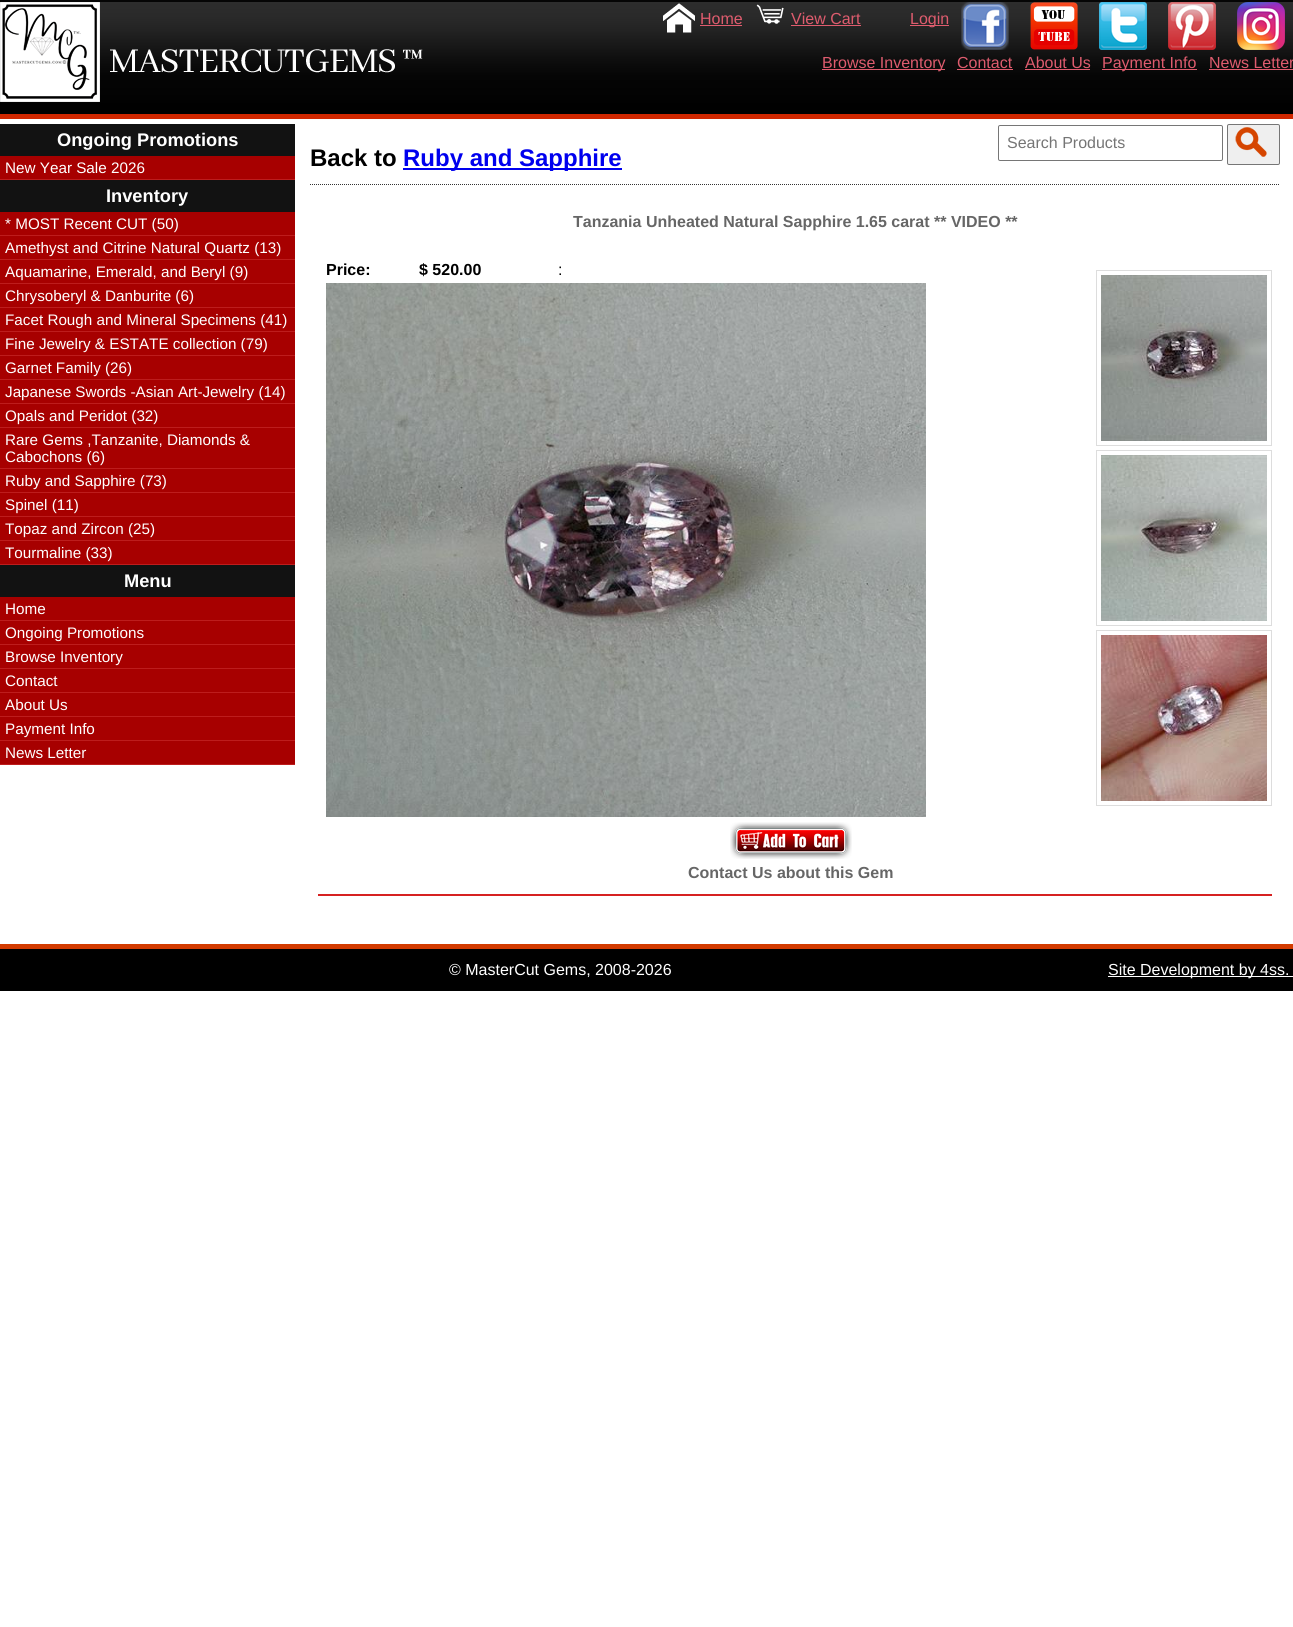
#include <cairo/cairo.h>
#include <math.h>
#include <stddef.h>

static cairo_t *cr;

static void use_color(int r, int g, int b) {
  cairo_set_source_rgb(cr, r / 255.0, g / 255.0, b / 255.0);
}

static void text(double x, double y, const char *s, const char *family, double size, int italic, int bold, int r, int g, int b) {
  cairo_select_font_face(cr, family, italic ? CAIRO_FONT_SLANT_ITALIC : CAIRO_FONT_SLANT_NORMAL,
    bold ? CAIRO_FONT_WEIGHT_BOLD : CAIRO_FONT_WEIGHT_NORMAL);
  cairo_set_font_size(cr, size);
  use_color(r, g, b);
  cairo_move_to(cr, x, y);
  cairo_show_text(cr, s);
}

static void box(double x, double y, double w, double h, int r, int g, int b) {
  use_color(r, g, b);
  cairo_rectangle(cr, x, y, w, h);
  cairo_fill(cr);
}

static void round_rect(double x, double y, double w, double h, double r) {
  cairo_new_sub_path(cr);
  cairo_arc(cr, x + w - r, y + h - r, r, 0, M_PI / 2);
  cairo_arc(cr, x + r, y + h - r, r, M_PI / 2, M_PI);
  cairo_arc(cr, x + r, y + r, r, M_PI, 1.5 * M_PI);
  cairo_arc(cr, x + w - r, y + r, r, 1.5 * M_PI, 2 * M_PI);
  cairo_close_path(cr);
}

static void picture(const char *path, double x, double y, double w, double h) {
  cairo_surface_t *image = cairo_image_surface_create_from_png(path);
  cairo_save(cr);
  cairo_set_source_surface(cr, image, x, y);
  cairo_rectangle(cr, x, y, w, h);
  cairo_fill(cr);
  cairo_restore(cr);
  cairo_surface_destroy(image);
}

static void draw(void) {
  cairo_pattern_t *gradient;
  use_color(255, 255, 255);
  cairo_paint(cr);
  gradient = cairo_pattern_create_linear(647, 2, 647, 114);
  cairo_pattern_add_color_stop_rgba(gradient, 0, 0.176, 0.176, 0.176, 1);
  cairo_pattern_add_color_stop_rgba(gradient, 0.12, 0.165, 0.165, 0.165, 1);
  cairo_pattern_add_color_stop_rgba(gradient, 0.25, 0.137, 0.137, 0.137, 1);
  cairo_pattern_add_color_stop_rgba(gradient, 0.5, 0.059, 0.059, 0.059, 1);
  cairo_pattern_add_color_stop_rgba(gradient, 0.66, 0.02, 0.02, 0.02, 1);
  cairo_pattern_add_color_stop_rgba(gradient, 1, 0, 0, 0, 1);
  cairo_set_source(cr, gradient);
  cairo_pattern_destroy(gradient);
  cairo_rectangle(cr, 0, 2, 1293, 112);
  cairo_fill(cr);
  box(0, 0, 1293, 2, 5, 5, 5);
  box(0, 114, 1293, 5, 208, 39, 0);
  picture("img_01.png", 0, 2, 100, 100);
  picture("img_02.png", 110, 49, 313, 24);
  picture("img_03.png", 663, 3, 32, 30);
  box(700, 25, 42, 1, 223, 92, 110);
  picture("img_04.png", 756, 4, 28, 20);
  box(791, 25, 70, 1, 223, 92, 110);
  box(910, 25, 39, 1, 223, 92, 110);
  picture("img_05.png", 961, 2, 48, 48);
  picture("img_06.png", 1030, 2, 48, 48);
  picture("img_07.png", 1099, 2, 48, 48);
  picture("img_08.png", 1168, 2, 48, 48);
  picture("img_09.png", 1237, 2, 48, 48);
  box(822, 69, 123, 1, 223, 92, 110);
  box(957, 69, 56, 1, 223, 92, 110);
  box(1025, 69, 65, 1, 223, 92, 110);
  box(1102, 69, 95, 1, 223, 92, 110);
  box(1209, 69, 84, 1, 223, 92, 110);
  box(0, 124, 295, 32, 18, 18, 18);
  box(0, 156, 295, 23, 167, 0, 0);
  box(0, 179, 295, 1, 189, 29, 29);
  box(0, 180, 295, 32, 18, 18, 18);
  box(0, 212, 295, 23, 167, 0, 0);
  box(0, 235, 295, 1, 189, 29, 29);
  box(0, 236, 295, 23, 167, 0, 0);
  box(0, 259, 295, 1, 189, 29, 29);
  box(0, 260, 295, 23, 167, 0, 0);
  box(0, 283, 295, 1, 189, 29, 29);
  box(0, 284, 295, 23, 167, 0, 0);
  box(0, 307, 295, 1, 189, 29, 29);
  box(0, 308, 295, 23, 167, 0, 0);
  box(0, 331, 295, 1, 189, 29, 29);
  box(0, 332, 295, 23, 167, 0, 0);
  box(0, 355, 295, 1, 189, 29, 29);
  box(0, 356, 295, 23, 167, 0, 0);
  box(0, 379, 295, 1, 189, 29, 29);
  box(0, 380, 295, 23, 167, 0, 0);
  box(0, 403, 295, 1, 189, 29, 29);
  box(0, 404, 295, 23, 167, 0, 0);
  box(0, 427, 295, 1, 189, 29, 29);
  box(0, 428, 295, 40, 167, 0, 0);
  box(0, 468, 295, 1, 189, 29, 29);
  box(0, 469, 295, 23, 167, 0, 0);
  box(0, 492, 295, 1, 189, 29, 29);
  box(0, 493, 295, 23, 167, 0, 0);
  box(0, 516, 295, 1, 189, 29, 29);
  box(0, 517, 295, 23, 167, 0, 0);
  box(0, 540, 295, 1, 189, 29, 29);
  box(0, 541, 295, 23, 167, 0, 0);
  box(0, 564, 295, 1, 189, 29, 29);
  box(0, 565, 295, 32, 18, 18, 18);
  box(0, 597, 295, 23, 167, 0, 0);
  box(0, 620, 295, 1, 189, 29, 29);
  box(0, 621, 295, 23, 167, 0, 0);
  box(0, 644, 295, 1, 189, 29, 29);
  box(0, 645, 295, 23, 167, 0, 0);
  box(0, 668, 295, 1, 189, 29, 29);
  box(0, 669, 295, 23, 167, 0, 0);
  box(0, 692, 295, 1, 189, 29, 29);
  box(0, 693, 295, 23, 167, 0, 0);
  box(0, 716, 295, 1, 189, 29, 29);
  box(0, 717, 295, 23, 167, 0, 0);
  box(0, 740, 295, 1, 189, 29, 29);
  box(0, 741, 295, 23, 167, 0, 0);
  box(0, 764, 295, 1, 189, 29, 29);
  round_rect(998.5, 125.5, 224, 35, 1.5);
  use_color(118, 118, 118);
  cairo_set_line_width(cr, 1);
  cairo_stroke(cr);
  use_color(239, 239, 239);
  round_rect(1227.5, 124.5, 52, 40, 1.5);
  cairo_fill_preserve(cr);
  use_color(118, 118, 118);
  cairo_stroke(cr);
  picture("img_10.png", 1235, 127, 32, 30);
  cairo_new_path(cr);
  cairo_move_to(cr, 310, 184.5);
  cairo_line_to(cr, 1280, 184.5);
  use_color(51, 51, 51);
  cairo_set_dash(cr, (double[]){1, 1}, 2, 0);
  cairo_stroke(cr);
  box(403, 168, 219, 2, 0, 0, 238);
  box(318, 894, 954, 2, 214, 33, 33);
  cairo_rectangle(cr, 1096.5, 270.5, 175, 175);
  use_color(221, 221, 221);
  cairo_set_dash(cr, NULL, 0, 0);
  cairo_stroke(cr);
  picture("img_11.png", 1101, 275, 166, 166);
  cairo_rectangle(cr, 1096.5, 450.5, 175, 175);
  cairo_stroke(cr);
  picture("img_12.png", 1101, 455, 166, 166);
  cairo_rectangle(cr, 1096.5, 630.5, 175, 175);
  cairo_stroke(cr);
  picture("img_13.png", 1101, 635, 166, 166);
  picture("img_14.png", 326, 283, 600, 534);
  picture("img_15.png", 730, 822, 122, 37);
  box(0, 949, 1293, 42, 0, 0, 0);
  box(0, 944, 1293, 5, 211, 59, 0);
  box(1108, 976, 185, 1, 255, 255, 255);
  text(700, 24, "Home", "Liberation Sans", 16, 0, 0, 223, 92, 110);
  text(791, 24, "View Cart", "Liberation Sans", 16, 0, 0, 223, 92, 110);
  text(910, 24, "Login", "Liberation Sans", 16, 0, 0, 223, 92, 110);
  text(822, 68, "Browse Inventory", "Liberation Sans", 16, 0, 0, 223, 92, 110);
  text(957, 68, "Contact", "Liberation Sans", 16, 0, 0, 223, 92, 110);
  text(1025, 68, "About Us", "Liberation Sans", 16, 0, 0, 223, 92, 110);
  text(1102, 68, "Payment Info", "Liberation Sans", 16, 0, 0, 223, 92, 110);
  text(1209, 68, "News Letter", "Liberation Sans", 16, 0, 0, 223, 92, 110);
  text(57, 146, "Ongoing Promotions", "Liberation Sans", 18.25, 0, 1, 255, 255, 255);
  text(5, 173, "New Year Sale 2026", "Liberation Sans", 15.25, 0, 0, 255, 255, 255);
  text(106, 202, "Inventory", "Liberation Sans", 18.25, 0, 1, 255, 255, 255);
  text(5, 229, "* MOST Recent CUT (50)", "Liberation Sans", 15.25, 0, 0, 255, 255, 255);
  text(5, 253, "Amethyst and Citrine Natural Quartz (13)", "Liberation Sans", 15.25, 0, 0, 255, 255, 255);
  text(5, 277, "Aquamarine, Emerald, and Beryl (9)", "Liberation Sans", 15.25, 0, 0, 255, 255, 255);
  text(5, 301, "Chrysoberyl & Danburite (6)", "Liberation Sans", 15.25, 0, 0, 255, 255, 255);
  text(5, 325, "Facet Rough and Mineral Specimens (41)", "Liberation Sans", 15.25, 0, 0, 255, 255, 255);
  text(5, 349, "Fine Jewelry & ESTATE collection (79)", "Liberation Sans", 15.25, 0, 0, 255, 255, 255);
  text(5, 373, "Garnet Family (26)", "Liberation Sans", 15.25, 0, 0, 255, 255, 255);
  text(5, 397, "Japanese Swords -Asian Art-Jewelry (14)", "Liberation Sans", 15.25, 0, 0, 255, 255, 255);
  text(5, 421, "Opals and Peridot (32)", "Liberation Sans", 15.25, 0, 0, 255, 255, 255);
  text(5, 445, "Rare Gems ,Tanzanite, Diamonds &", "Liberation Sans", 15.25, 0, 0, 255, 255, 255);
  text(5, 462, "Cabochons (6)", "Liberation Sans", 15.25, 0, 0, 255, 255, 255);
  text(5, 486, "Ruby and Sapphire (73)", "Liberation Sans", 15.25, 0, 0, 255, 255, 255);
  text(5, 510, "Spinel (11)", "Liberation Sans", 15.25, 0, 0, 255, 255, 255);
  text(5, 534, "Topaz and Zircon (25)", "Liberation Sans", 15.25, 0, 0, 255, 255, 255);
  text(5, 558, "Tourmaline (33)", "Liberation Sans", 15.25, 0, 0, 255, 255, 255);
  text(124, 587, "Menu", "Liberation Sans", 18.25, 0, 1, 255, 255, 255);
  text(5, 614, "Home", "Liberation Sans", 15.25, 0, 0, 255, 255, 255);
  text(5, 638, "Ongoing Promotions", "Liberation Sans", 15.25, 0, 0, 255, 255, 255);
  text(5, 662, "Browse Inventory", "Liberation Sans", 15.25, 0, 0, 255, 255, 255);
  text(5, 686, "Contact", "Liberation Sans", 15.25, 0, 0, 255, 255, 255);
  text(5, 710, "About Us", "Liberation Sans", 15.25, 0, 0, 255, 255, 255);
  text(5, 734, "Payment Info", "Liberation Sans", 15.25, 0, 0, 255, 255, 255);
  text(5, 758, "News Letter", "Liberation Sans", 15.25, 0, 0, 255, 255, 255);
  text(1007, 148, "Search Products", "Liberation Sans", 16, 0, 0, 117, 117, 117);
  text(310, 166, "Back to", "Liberation Sans", 24, 0, 1, 0, 0, 0);
  text(403, 166, "Ruby and Sapphire", "Liberation Sans", 24, 0, 1, 0, 0, 238);
  text(573, 227, "Tanzania Unheated Natural Sapphire 1.65 carat ** VIDEO **", "Liberation Sans", 16, 0, 1, 102, 102, 102);
  text(326, 275, "Price:", "Liberation Sans", 16, 0, 1, 0, 0, 0);
  text(419, 275, "$ 520.00", "Liberation Sans", 16, 0, 1, 0, 0, 0);
  text(558, 275, ":", "Liberation Sans", 16, 0, 0, 0, 0, 0);
  text(688, 878, "Contact Us about this Gem", "Liberation Sans", 16, 0, 1, 102, 102, 102);
  text(449, 975, "© MasterCut Gems, 2008-2026", "Liberation Sans", 16, 0, 0, 255, 255, 255);
  text(1108, 975, "Site Development by 4ss.", "Liberation Sans", 16, 0, 0, 255, 255, 255);
}

int main(void) {
  cairo_surface_t *surface = cairo_image_surface_create(CAIRO_FORMAT_RGB24, 1293, 1627);
  cr = cairo_create(surface);
  cairo_font_options_t *options = cairo_font_options_create();
  cairo_font_options_set_hint_metrics(options, CAIRO_HINT_METRICS_OFF);
  cairo_font_options_set_hint_style(options, CAIRO_HINT_STYLE_NONE);
  cairo_set_font_options(cr, options);
  cairo_set_miter_limit(cr, 4);
  draw();
  cairo_surface_write_to_png(surface, "out.png");
  cairo_font_options_destroy(options);
  cairo_destroy(cr);
  cairo_surface_destroy(surface);
  return 0;
}
